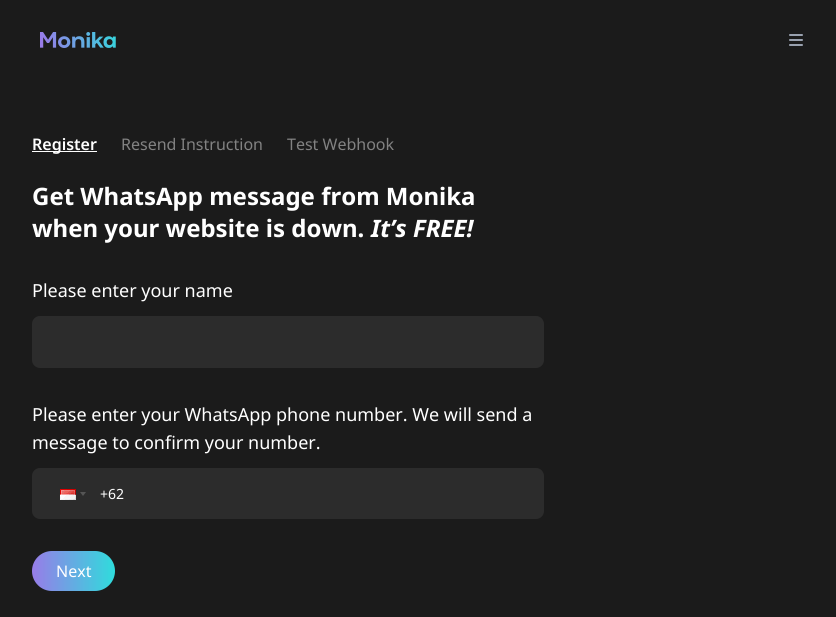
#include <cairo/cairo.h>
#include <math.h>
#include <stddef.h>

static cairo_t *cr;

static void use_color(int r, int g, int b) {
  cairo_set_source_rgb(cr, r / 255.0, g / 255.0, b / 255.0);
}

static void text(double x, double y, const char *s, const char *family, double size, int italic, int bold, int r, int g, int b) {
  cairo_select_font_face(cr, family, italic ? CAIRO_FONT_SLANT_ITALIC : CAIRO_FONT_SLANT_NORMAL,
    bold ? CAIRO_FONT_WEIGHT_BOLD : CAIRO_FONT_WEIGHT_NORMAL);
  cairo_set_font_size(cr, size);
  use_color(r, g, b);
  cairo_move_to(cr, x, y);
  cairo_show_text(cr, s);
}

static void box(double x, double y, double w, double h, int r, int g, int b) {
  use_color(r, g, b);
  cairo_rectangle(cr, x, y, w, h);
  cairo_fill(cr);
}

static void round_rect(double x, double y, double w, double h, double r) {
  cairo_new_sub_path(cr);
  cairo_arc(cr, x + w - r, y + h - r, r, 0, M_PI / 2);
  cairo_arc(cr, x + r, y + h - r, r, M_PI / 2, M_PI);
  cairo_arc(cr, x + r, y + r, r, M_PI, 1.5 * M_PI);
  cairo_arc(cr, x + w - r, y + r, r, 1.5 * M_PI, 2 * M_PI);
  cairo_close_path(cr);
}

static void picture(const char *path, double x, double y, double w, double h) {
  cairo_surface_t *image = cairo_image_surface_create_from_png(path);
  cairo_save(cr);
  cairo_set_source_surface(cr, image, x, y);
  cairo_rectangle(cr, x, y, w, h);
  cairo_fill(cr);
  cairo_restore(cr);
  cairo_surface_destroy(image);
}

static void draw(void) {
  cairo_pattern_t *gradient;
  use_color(27, 27, 27);
  cairo_paint(cr);
  picture("img_01.png", 40, 32, 76, 16);
  picture("img_02.png", 789, 34, 14, 12);
  box(32, 151, 65, 1, 255, 255, 255);
  use_color(44, 44, 44);
  round_rect(32, 316, 512, 52, 8);
  cairo_fill(cr);
  round_rect(32, 468, 512, 51, 8);
  cairo_fill(cr);
  picture("img_03.png", 60, 489, 16, 11);
  use_color(85, 85, 85);
  cairo_new_path(cr);
  cairo_move_to(cr, 80, 492);
  cairo_line_to(cr, 86, 492);
  cairo_line_to(cr, 83, 496);
  cairo_close_path(cr);
  cairo_fill(cr);
  gradient = cairo_pattern_create_linear(32, 571, 115, 571);
  cairo_pattern_add_color_stop_rgba(gradient, 0, 0.596, 0.486, 0.91, 1);
  cairo_pattern_add_color_stop_rgba(gradient, 1, 0.184, 0.863, 0.863, 1);
  cairo_set_source(cr, gradient);
  cairo_pattern_destroy(gradient);
  round_rect(32, 551, 83, 40, 20);
  cairo_fill(cr);
  text(32, 150, "Register", "Noto Sans SemiBold", 16, 0, 0, 255, 255, 255);
  text(121, 150, "Resend Instruction", "Noto Sans", 16, 0, 0, 130, 130, 130);
  text(287, 150, "Test Webhook", "Noto Sans", 16, 0, 0, 130, 130, 130);
  text(32, 205, "Get WhatsApp message from Monika", "Noto Sans", 24, 0, 1, 255, 255, 255);
  text(32, 237, "when your website is down.", "Noto Sans", 24, 0, 1, 255, 255, 255);
  text(371, 237, "It’s FREE!", "Noto Sans", 24, 1, 1, 255, 255, 255);
  text(32, 297, "Please enter your name", "Noto Sans", 18, 0, 0, 255, 255, 255);
  text(32, 421, "Please enter your WhatsApp phone number. We will send a", "Noto Sans", 18, 0, 0, 255, 255, 255);
  text(32, 449, "message to confirm your number.", "Noto Sans", 18, 0, 0, 255, 255, 255);
  text(100, 499, "+62", "Noto Sans", 14, 0, 0, 255, 255, 255);
  text(56, 577, "Next", "Noto Sans", 16, 0, 0, 255, 255, 255);
}

int main(void) {
  cairo_surface_t *surface = cairo_image_surface_create(CAIRO_FORMAT_RGB24, 836, 617);
  cr = cairo_create(surface);
  cairo_font_options_t *options = cairo_font_options_create();
  cairo_font_options_set_hint_metrics(options, CAIRO_HINT_METRICS_OFF);
  cairo_font_options_set_hint_style(options, CAIRO_HINT_STYLE_NONE);
  cairo_set_font_options(cr, options);
  cairo_set_miter_limit(cr, 4);
  draw();
  cairo_surface_write_to_png(surface, "out.png");
  cairo_font_options_destroy(options);
  cairo_destroy(cr);
  cairo_surface_destroy(surface);
  return 0;
}
